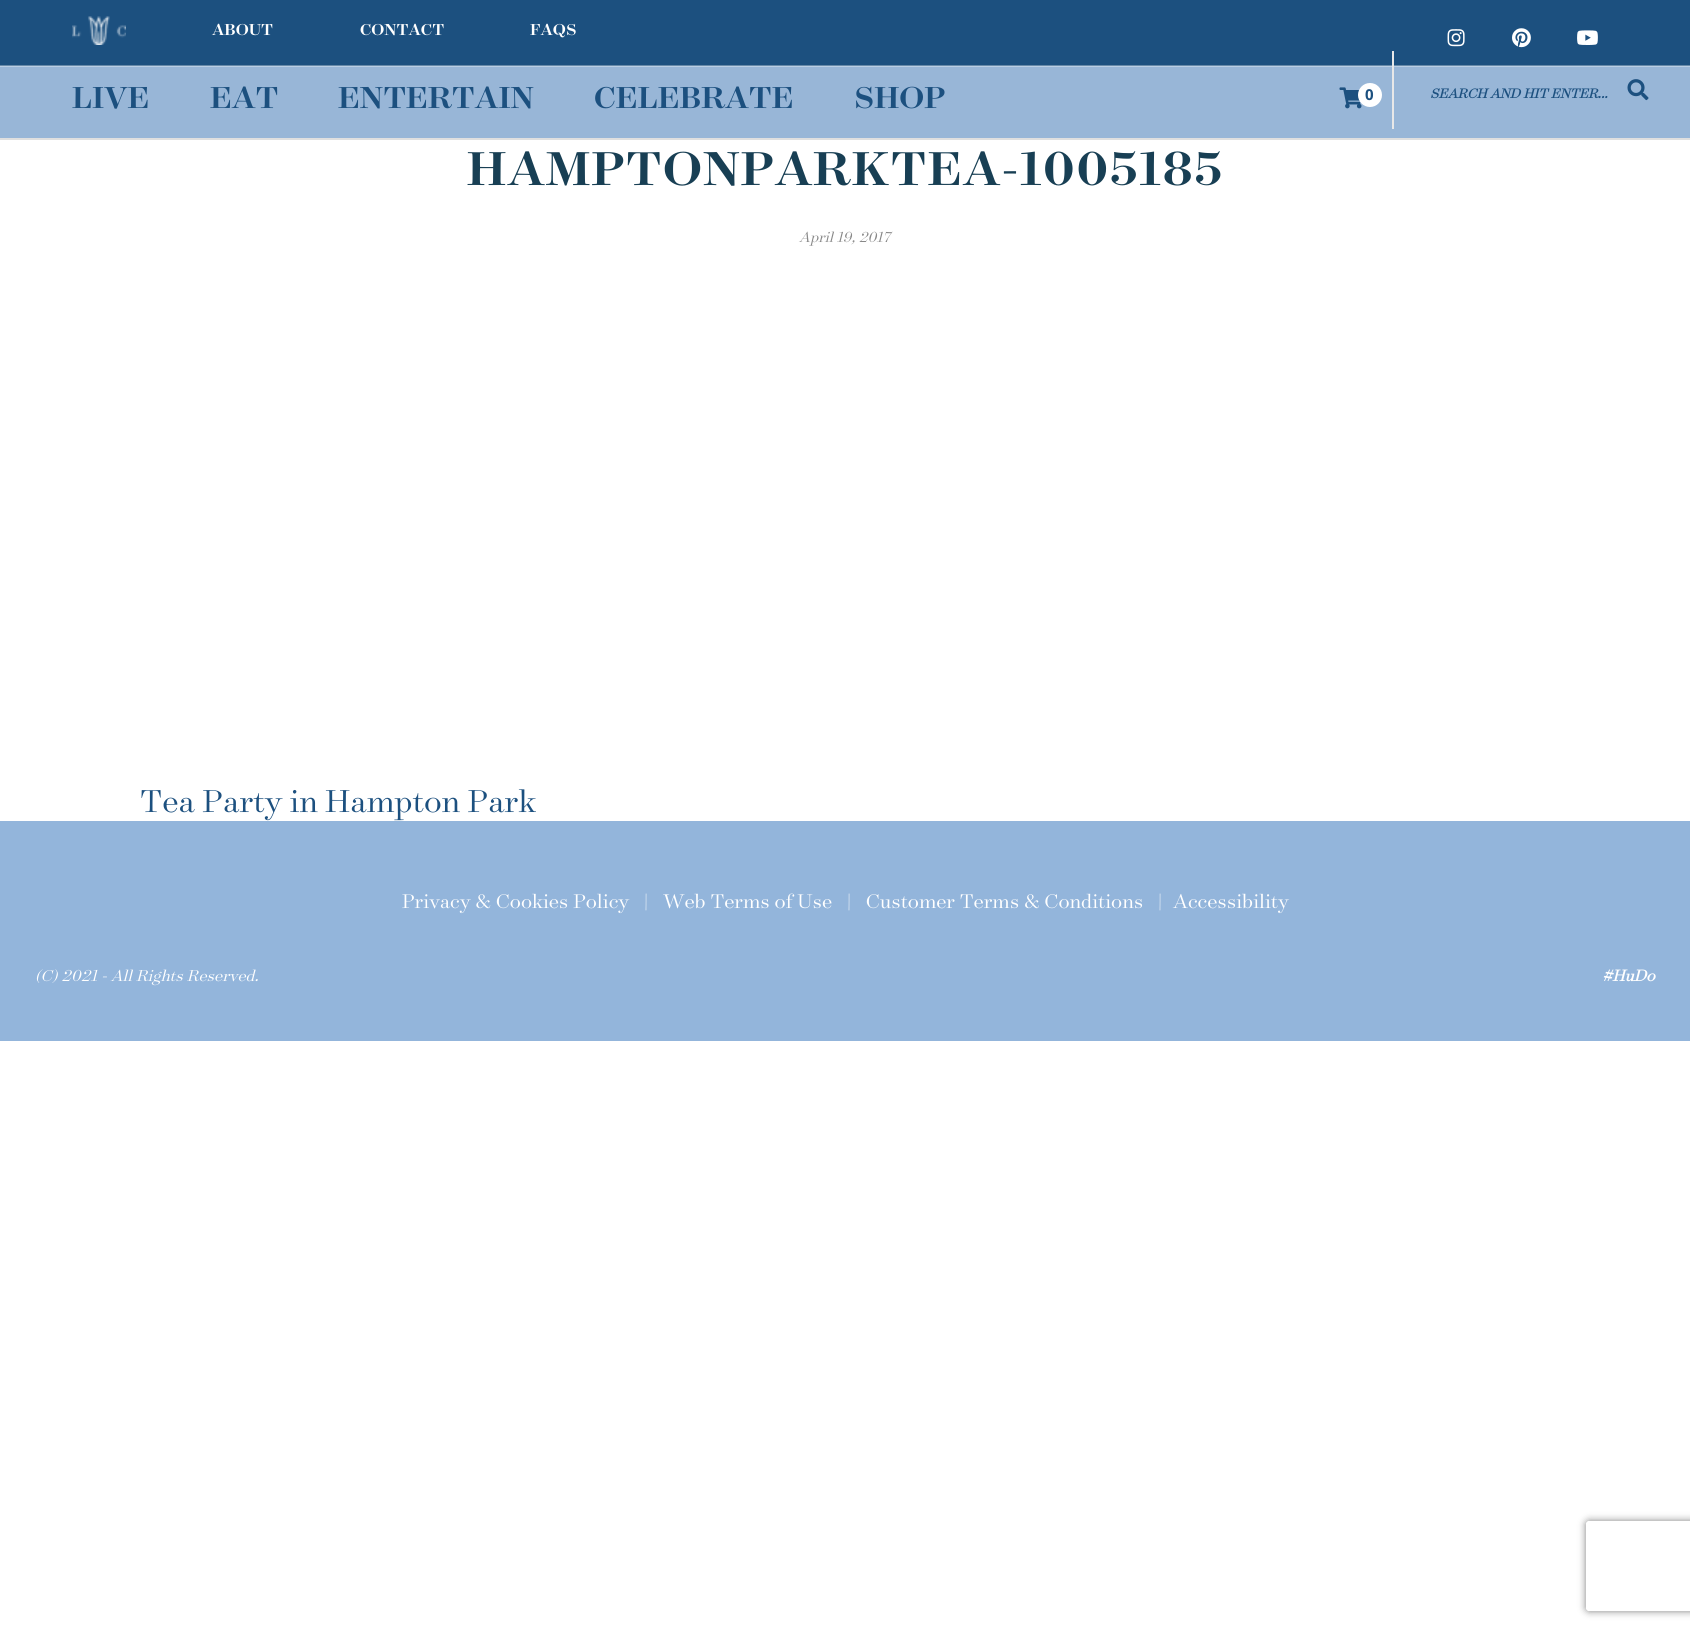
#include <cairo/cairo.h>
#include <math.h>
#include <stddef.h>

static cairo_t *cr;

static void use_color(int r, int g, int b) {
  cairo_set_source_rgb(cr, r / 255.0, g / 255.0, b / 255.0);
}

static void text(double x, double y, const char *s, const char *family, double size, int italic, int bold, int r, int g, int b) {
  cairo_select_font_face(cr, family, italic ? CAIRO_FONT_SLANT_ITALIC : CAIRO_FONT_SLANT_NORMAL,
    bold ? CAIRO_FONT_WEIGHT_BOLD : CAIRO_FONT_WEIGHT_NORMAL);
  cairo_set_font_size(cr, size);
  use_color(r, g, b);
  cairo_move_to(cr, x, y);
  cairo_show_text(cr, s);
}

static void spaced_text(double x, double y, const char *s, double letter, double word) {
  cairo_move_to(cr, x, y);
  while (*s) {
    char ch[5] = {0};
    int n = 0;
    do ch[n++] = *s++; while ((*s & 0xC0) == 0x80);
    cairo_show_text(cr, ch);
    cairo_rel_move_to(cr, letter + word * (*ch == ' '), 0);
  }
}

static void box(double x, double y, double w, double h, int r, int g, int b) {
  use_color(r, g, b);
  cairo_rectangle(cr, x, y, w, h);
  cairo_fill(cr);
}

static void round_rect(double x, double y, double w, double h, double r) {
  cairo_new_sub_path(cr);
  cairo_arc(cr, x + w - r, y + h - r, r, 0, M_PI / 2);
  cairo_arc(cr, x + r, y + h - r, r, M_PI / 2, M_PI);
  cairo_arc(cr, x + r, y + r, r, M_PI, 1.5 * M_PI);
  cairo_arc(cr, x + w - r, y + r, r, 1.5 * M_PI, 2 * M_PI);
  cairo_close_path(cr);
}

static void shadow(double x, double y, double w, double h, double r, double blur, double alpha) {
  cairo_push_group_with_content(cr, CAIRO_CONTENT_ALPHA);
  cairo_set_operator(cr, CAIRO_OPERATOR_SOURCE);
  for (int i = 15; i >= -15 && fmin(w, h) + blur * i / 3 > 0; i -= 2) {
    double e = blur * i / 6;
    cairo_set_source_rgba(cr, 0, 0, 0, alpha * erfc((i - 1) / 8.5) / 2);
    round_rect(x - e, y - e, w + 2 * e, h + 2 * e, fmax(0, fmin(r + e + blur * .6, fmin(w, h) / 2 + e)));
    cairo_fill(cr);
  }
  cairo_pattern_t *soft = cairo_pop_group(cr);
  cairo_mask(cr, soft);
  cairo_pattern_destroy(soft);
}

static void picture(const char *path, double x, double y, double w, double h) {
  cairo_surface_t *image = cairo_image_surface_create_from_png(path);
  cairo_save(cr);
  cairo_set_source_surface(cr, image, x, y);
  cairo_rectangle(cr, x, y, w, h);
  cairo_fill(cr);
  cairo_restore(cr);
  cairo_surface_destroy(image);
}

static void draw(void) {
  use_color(255, 255, 255);
  cairo_paint(cr);
  box(0, 0, 1690, 65, 28, 80, 127);
  box(0, 65, 1690, 1, 103, 138, 169);
  picture("img_01.png", 72, 16, 54, 29);
  picture("img_02.png", 1447, 29, 18, 18);
  picture("img_03.png", 1512, 28, 19, 20);
  picture("img_04.png", 1577, 30, 21, 15);
  box(0, 67, 1690, 71, 152, 182, 215);
  box(0, 66, 1690, 1, 186, 206, 228);
  box(0, 138, 1690, 2, 223, 223, 223);
  picture("img_05.png", 1339, 87, 23, 22);
  use_color(255, 255, 255);
  cairo_arc(cr, 1370, 95, 12, 0, 2 * M_PI);
  cairo_fill(cr);
  box(1392, 51, 2, 78, 232, 232, 232);
  picture("img_06.png", 1627, 79, 22, 22);
  box(0, 821, 1690, 220, 147, 181, 219);
  cairo_save(cr);
  cairo_set_fill_rule(cr, CAIRO_FILL_RULE_EVEN_ODD);
  cairo_new_path(cr);
  cairo_move_to(cr, 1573, 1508);
  cairo_line_to(cr, 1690, 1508);
  cairo_line_to(cr, 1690, 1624);
  cairo_line_to(cr, 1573, 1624);
  cairo_close_path(cr);
  cairo_move_to(cr, 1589, 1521);
  cairo_line_to(cr, 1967, 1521);
  cairo_curve_to(cr, 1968.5, 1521, 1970, 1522.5, 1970, 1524);
  cairo_line_to(cr, 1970, 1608);
  cairo_curve_to(cr, 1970, 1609.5, 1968.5, 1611, 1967, 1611);
  cairo_line_to(cr, 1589, 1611);
  cairo_curve_to(cr, 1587.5, 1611, 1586, 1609.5, 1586, 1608);
  cairo_line_to(cr, 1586, 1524);
  cairo_curve_to(cr, 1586, 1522.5, 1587.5, 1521, 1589, 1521);
  cairo_close_path(cr);
  cairo_clip(cr);
  use_color(128, 128, 128);
  shadow(1586, 1521, 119, 90, 3, 4, 1);
  cairo_restore(cr);
  text(212, 35, "ABOUT", "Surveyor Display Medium", 18, 0, 0, 255, 255, 255);
  text(360, 35, "CONTACT", "Surveyor Display Medium", 18, 0, 0, 255, 255, 255);
  text(530, 35, "FAQS", "Surveyor Display Medium", 18, 0, 0, 255, 255, 255);
  text(72, 108, "LIVE", "Surveyor Display Medium", 34.5, 0, 0, 28, 80, 127);
  text(210, 108, "EAT", "Surveyor Display Medium", 34.5, 0, 0, 28, 80, 127);
  text(338, 108, "ENTERTAIN", "Surveyor Display Medium", 34.5, 0, 0, 28, 80, 127);
  text(594, 108, "CELEBRATE", "Surveyor Display Medium", 34.5, 0, 0, 28, 80, 127);
  text(854, 108, "SHOP", "Surveyor Display Medium", 34.5, 0, 0, 28, 80, 127);
  text(1365, 100, "0", "Open Sans", 15, 0, 1, 28, 80, 127);
  text(1430, 98, "SEARCH AND HIT ENTER...", "Surveyor Display", 15, 1, 1, 28, 80, 127);
  cairo_select_font_face(cr, "Surveyor Display Medium", CAIRO_FONT_SLANT_NORMAL, CAIRO_FONT_WEIGHT_NORMAL);
  cairo_set_font_size(cr, 54);
  use_color(24, 63, 84);
  spaced_text(467, 185, "HAMPTONPARKTEA-1005185", 1.2, 0);
  text(799, 242, "April 19, 2017", "Surveyor Display Light", 16.5, 1, 0, 136, 136, 136);
  text(140, 812, "Tea Party in Hampton Park", "Surveyor Display Light", 36, 0, 0, 28, 80, 127);
  text(402, 908, "Privacy & Cookies Policy   |", "Surveyor Display Light", 22.5, 0, 0, 255, 255, 255);
  text(663, 908, "Web Terms of Use   |", "Surveyor Display Light", 22.5, 0, 0, 255, 255, 255);
  text(866, 908, "Customer Terms & Conditions   |", "Surveyor Display Light", 22.5, 0, 0, 255, 255, 255);
  text(1173, 908, "Accessibility", "Surveyor Display Light", 22.5, 0, 0, 255, 255, 255);
  text(35, 981, "(C) 2021 - All Rights Reserved.", "Surveyor Display Light", 18, 1, 0, 255, 255, 255);
  text(1602, 981, "#HuDo", "Surveyor Display", 18, 1, 1, 255, 255, 255);
}

int main(void) {
  cairo_surface_t *surface = cairo_image_surface_create(CAIRO_FORMAT_RGB24, 1690, 1632);
  cr = cairo_create(surface);
  cairo_font_options_t *options = cairo_font_options_create();
  cairo_font_options_set_hint_metrics(options, CAIRO_HINT_METRICS_OFF);
  cairo_font_options_set_hint_style(options, CAIRO_HINT_STYLE_NONE);
  cairo_set_font_options(cr, options);
  cairo_set_miter_limit(cr, 4);
  draw();
  cairo_surface_write_to_png(surface, "out.png");
  cairo_font_options_destroy(options);
  cairo_destroy(cr);
  cairo_surface_destroy(surface);
  return 0;
}
